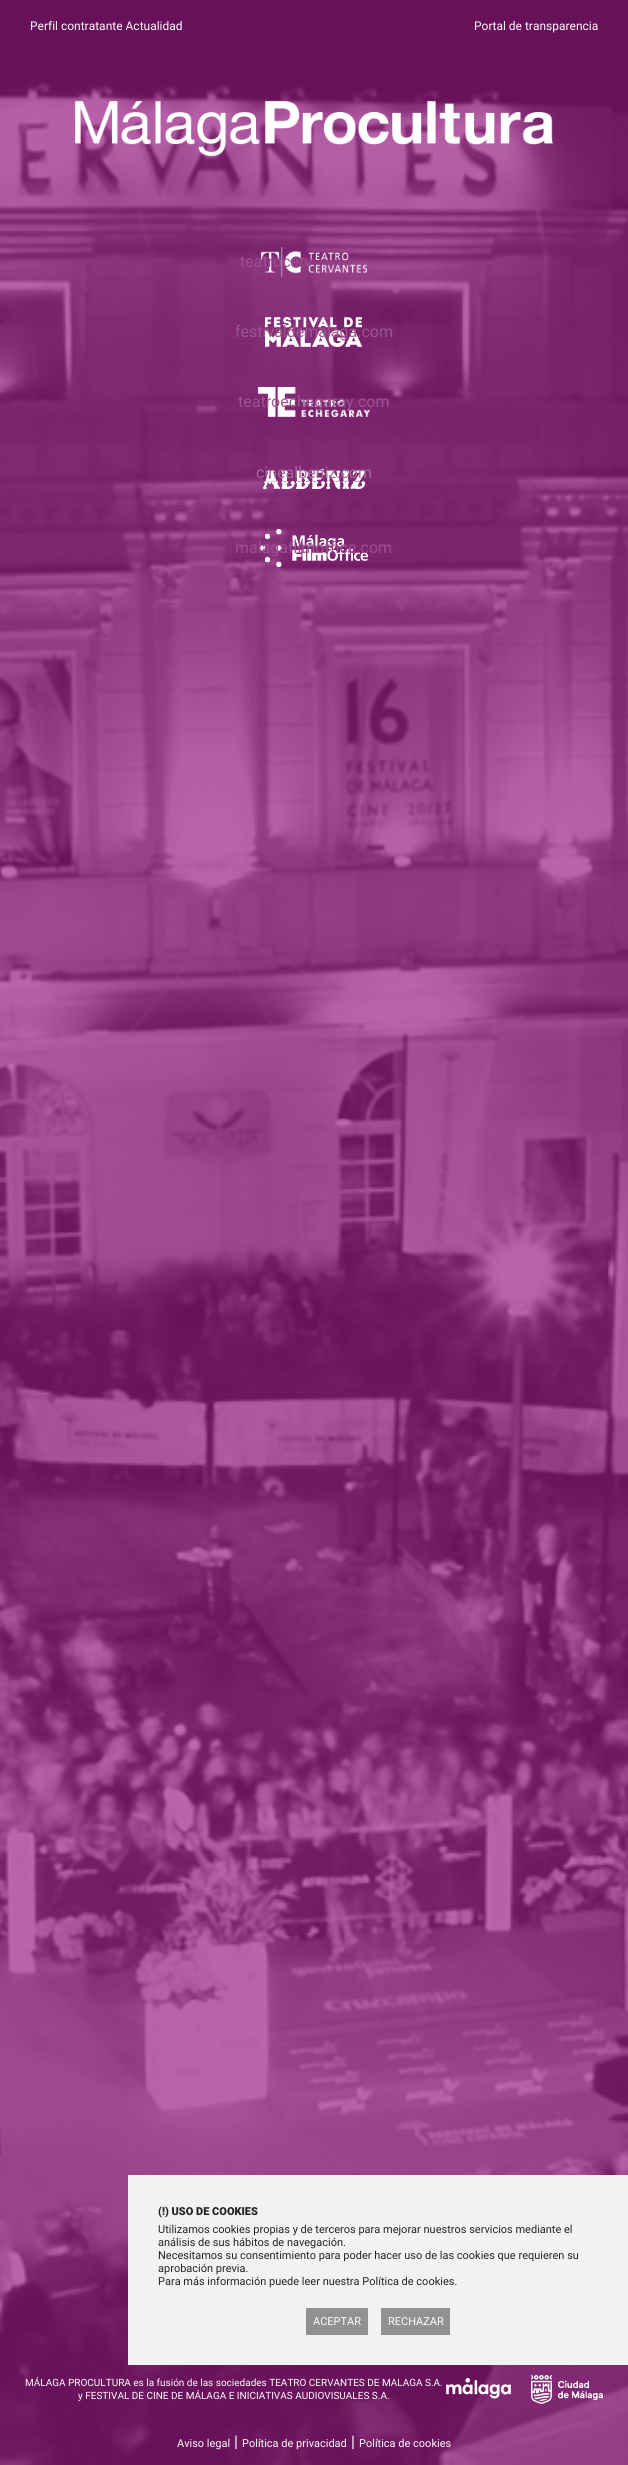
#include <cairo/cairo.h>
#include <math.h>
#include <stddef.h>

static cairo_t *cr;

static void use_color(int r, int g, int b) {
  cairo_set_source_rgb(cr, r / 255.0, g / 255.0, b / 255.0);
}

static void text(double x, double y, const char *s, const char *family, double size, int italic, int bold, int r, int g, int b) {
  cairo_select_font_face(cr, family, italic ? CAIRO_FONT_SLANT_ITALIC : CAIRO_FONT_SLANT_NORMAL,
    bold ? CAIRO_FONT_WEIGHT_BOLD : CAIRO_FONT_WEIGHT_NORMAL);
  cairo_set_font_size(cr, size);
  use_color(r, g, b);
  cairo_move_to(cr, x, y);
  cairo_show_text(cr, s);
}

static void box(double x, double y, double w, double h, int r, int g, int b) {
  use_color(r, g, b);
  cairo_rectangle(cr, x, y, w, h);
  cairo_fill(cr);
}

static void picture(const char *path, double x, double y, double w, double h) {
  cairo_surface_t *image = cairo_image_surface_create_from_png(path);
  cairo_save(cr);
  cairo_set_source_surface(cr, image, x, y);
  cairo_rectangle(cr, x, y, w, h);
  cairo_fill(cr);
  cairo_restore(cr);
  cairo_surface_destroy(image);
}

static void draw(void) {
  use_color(255, 255, 255);
  cairo_paint(cr);
  picture("img_01.png", 0, 0, 628, 2465);
  picture("img_02.png", 75, 101, 478, 55);
  picture("img_03.png", 261, 247, 106, 30);
  picture("img_04.png", 265, 317, 97, 30);
  picture("img_05.png", 258, 387, 112, 30);
  picture("img_06.png", 263, 469, 102, 20);
  picture("img_07.png", 260, 529, 108, 38);
  picture("img_08.png", 446, 2378, 65, 21);
  picture("img_09.png", 531, 2375, 72, 29);
  box(128, 2175, 500, 190, 242, 242, 242);
  box(306, 2308, 62, 27, 145, 145, 145);
  box(381, 2308, 69, 27, 145, 145, 145);
  text(30, 30, "Perfil contratante Actualidad", "Roboto", 12, 0, 0, 255, 255, 255);
  text(474, 30, "Portal de transparencia", "Roboto", 12, 0, 0, 255, 255, 255);
  text(240, 267, "teatrocerv", "Roboto", 16, 0, 0, 157, 79, 143);
  text(235, 337, "festivaldemalaga.com", "Roboto", 16, 0, 0, 155, 85, 143);
  text(238, 407, "teatroechegaray.com", "Roboto", 16, 0, 0, 155, 85, 143);
  text(256, 478, "cinealbeniz.com", "Roboto", 16, 0, 0, 167, 107, 157);
  text(235, 553, "malagafilmoffice.com", "Roboto", 16, 0, 0, 157, 79, 143);
  text(25, 2386, "MÁLAGA PROCULTURA es la fusión de las sociedades TEATRO CERVANTES DE MALAGA S.A.", "Roboto", 10, 0, 0, 255, 255, 255);
  text(78, 2399, "y FESTIVAL DE CINE DE MÁLAGA E INICIATIVAS AUDIOVISUALES S.A.", "Roboto", 10, 0, 0, 255, 255, 255);
  text(177, 2447, "Aviso legal", "Roboto", 11, 0, 0, 255, 255, 255);
  text(234, 2447, "|", "Roboto", 16, 0, 0, 255, 255, 255);
  text(242, 2447, "Política de privacidad", "Roboto", 11, 0, 0, 255, 255, 255);
  text(351, 2447, "|", "Roboto", 16, 0, 0, 255, 255, 255);
  text(359, 2447, "Política de cookies", "Roboto", 11, 0, 0, 255, 255, 255);
  text(158, 2215, "(!) USO DE COOKIES", "Roboto Black", 11, 0, 0, 34, 34, 33);
  text(158, 2233, "Utilizamos cookies propias y de terceros para mejorar nuestros servicios mediante el", "Roboto", 11, 0, 0, 34, 34, 33);
  text(158, 2246, "análisis de sus hábitos de navegación.", "Roboto", 11, 0, 0, 34, 34, 33);
  text(158, 2259, "Necesitamos su consentimiento para poder hacer uso de las cookies que requieren su", "Roboto", 11, 0, 0, 34, 34, 33);
  text(158, 2272, "aprobación previa.", "Roboto", 11, 0, 0, 34, 34, 33);
  text(158, 2285, "Para más información puede leer nuestra Política de cookies.", "Roboto", 11, 0, 0, 34, 34, 33);
  text(313, 2325, "ACEPTAR", "Roboto", 11, 0, 0, 255, 255, 255);
  text(388, 2325, "RECHAZAR", "Roboto", 11, 0, 0, 255, 255, 255);
}

int main(void) {
  cairo_surface_t *surface = cairo_image_surface_create(CAIRO_FORMAT_RGB24, 628, 2465);
  cr = cairo_create(surface);
  cairo_font_options_t *options = cairo_font_options_create();
  cairo_font_options_set_hint_metrics(options, CAIRO_HINT_METRICS_OFF);
  cairo_font_options_set_hint_style(options, CAIRO_HINT_STYLE_NONE);
  cairo_set_font_options(cr, options);
  cairo_set_miter_limit(cr, 4);
  draw();
  cairo_surface_write_to_png(surface, "out.png");
  cairo_font_options_destroy(options);
  cairo_destroy(cr);
  cairo_surface_destroy(surface);
  return 0;
}
